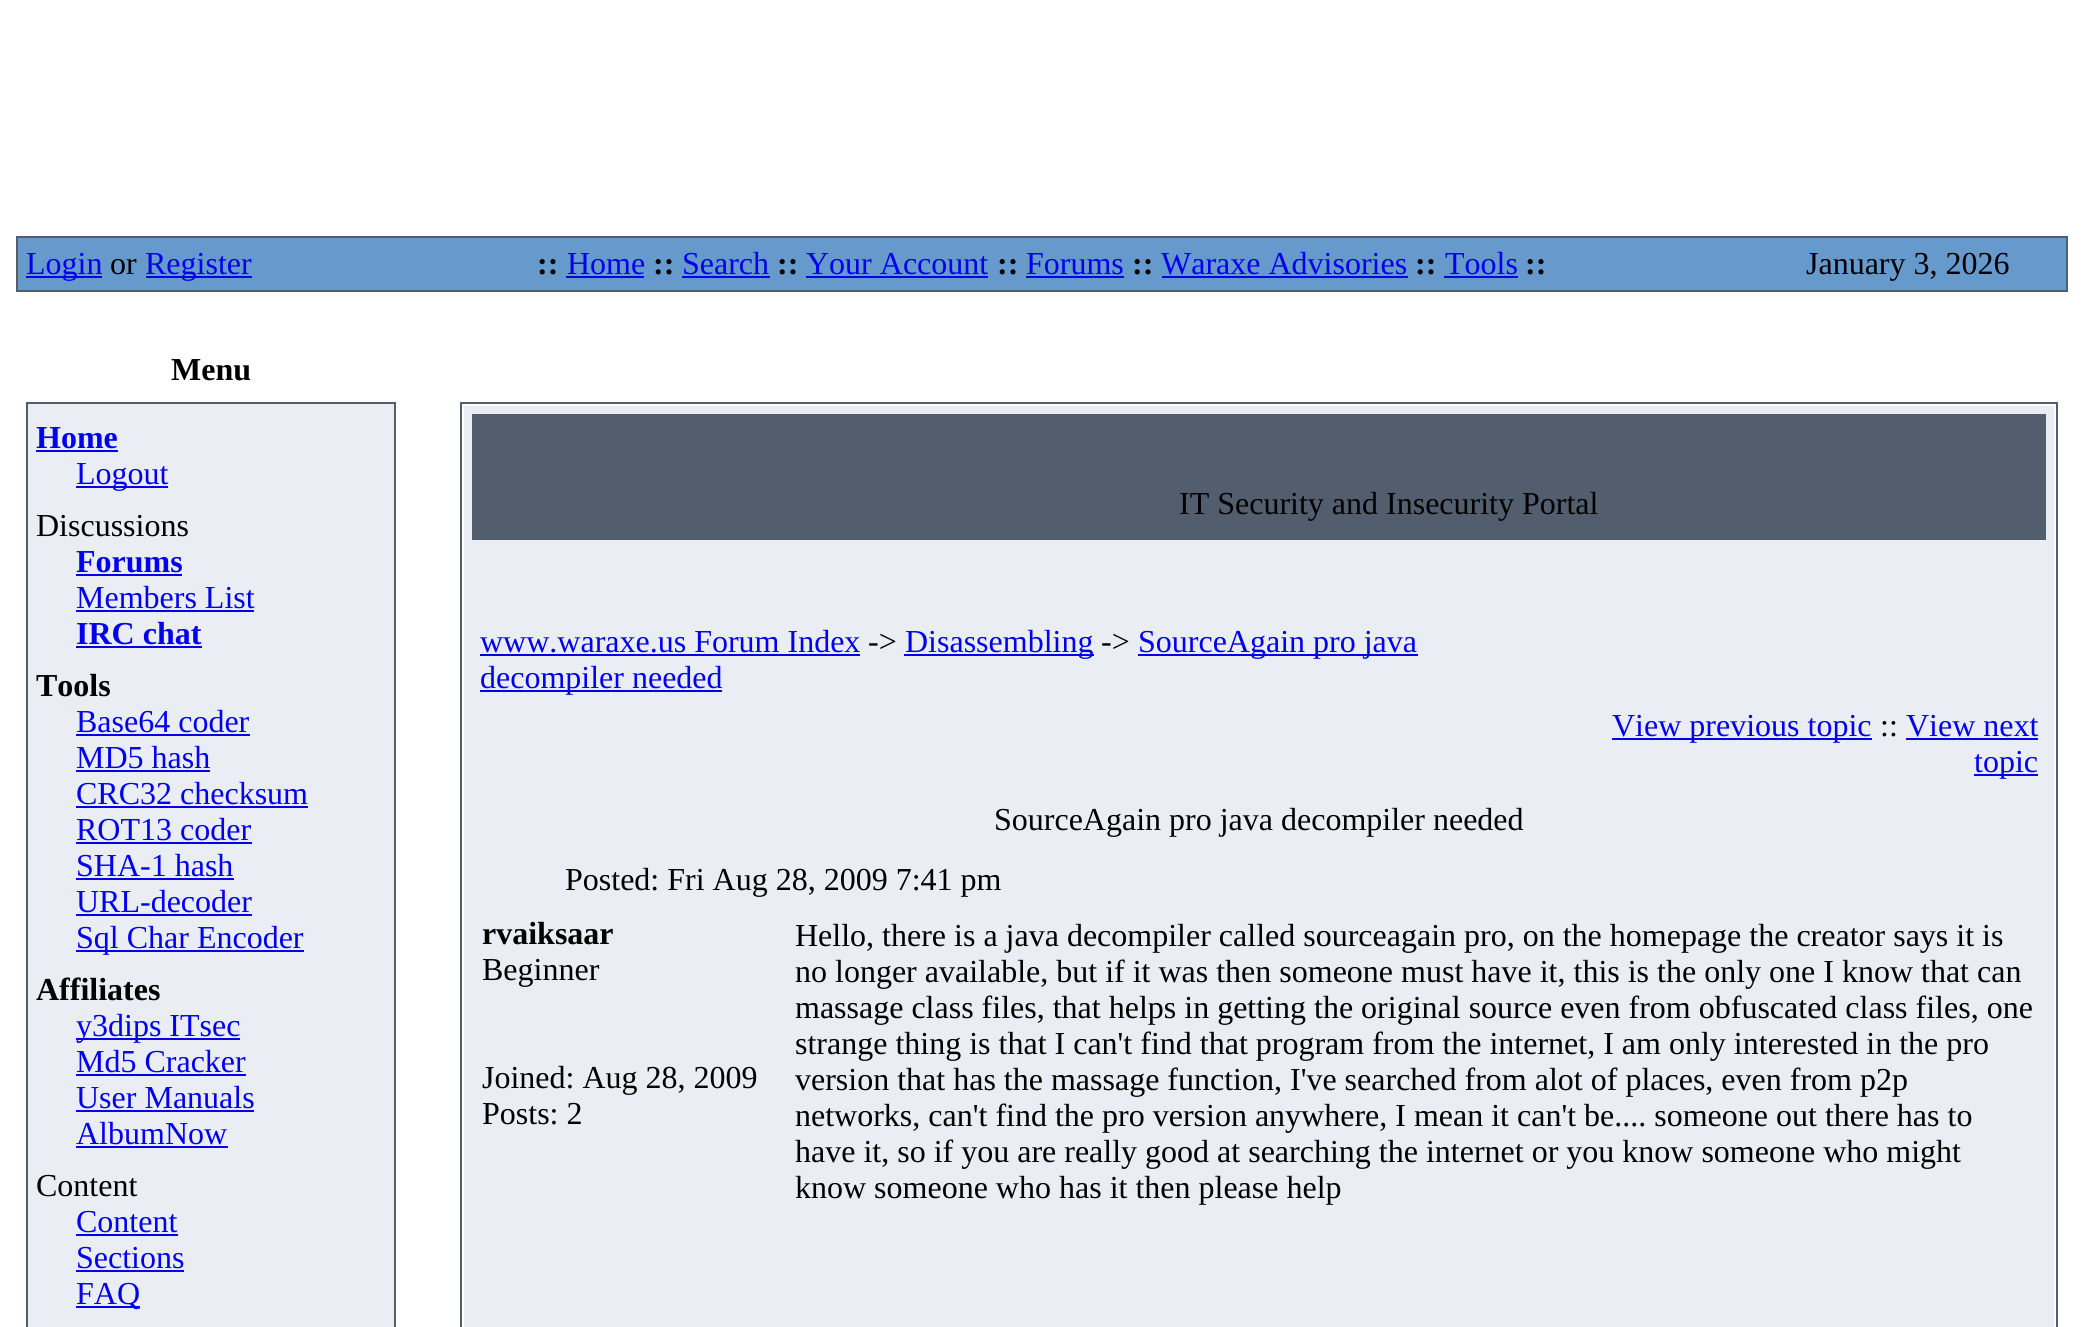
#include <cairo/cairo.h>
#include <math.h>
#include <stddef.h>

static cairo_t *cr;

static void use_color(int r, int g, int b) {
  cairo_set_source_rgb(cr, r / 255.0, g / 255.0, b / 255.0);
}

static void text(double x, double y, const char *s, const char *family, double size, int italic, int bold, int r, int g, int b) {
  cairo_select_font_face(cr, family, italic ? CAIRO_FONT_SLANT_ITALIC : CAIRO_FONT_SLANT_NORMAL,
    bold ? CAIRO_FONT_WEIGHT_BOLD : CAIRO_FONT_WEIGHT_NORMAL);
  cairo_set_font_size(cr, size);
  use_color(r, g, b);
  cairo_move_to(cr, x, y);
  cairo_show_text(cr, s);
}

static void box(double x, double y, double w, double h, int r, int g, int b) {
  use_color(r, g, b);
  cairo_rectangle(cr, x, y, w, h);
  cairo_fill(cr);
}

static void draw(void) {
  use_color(255, 255, 255);
  cairo_paint(cr);
  box(16, 236, 2052, 56, 82, 94, 110);
  box(18, 238, 2048, 52, 102, 153, 204);
  box(26, 276, 76, 2, 0, 0, 238);
  box(146, 276, 106, 2, 0, 0, 238);
  box(566, 276, 78, 2, 0, 0, 238);
  box(682, 276, 88, 2, 0, 0, 238);
  box(806, 276, 182, 2, 0, 0, 238);
  box(1026, 276, 98, 2, 0, 0, 238);
  box(1162, 276, 246, 2, 0, 0, 238);
  box(1444, 276, 74, 2, 0, 0, 238);
  box(26, 402, 370, 925, 82, 94, 110);
  box(28, 404, 366, 923, 234, 237, 244);
  box(36, 450, 82, 2, 0, 0, 238);
  box(76, 486, 92, 2, 0, 0, 238);
  box(76, 574, 106, 2, 0, 0, 238);
  box(76, 610, 178, 2, 0, 0, 238);
  box(76, 646, 126, 2, 0, 0, 238);
  box(76, 734, 174, 2, 0, 0, 238);
  box(76, 770, 134, 2, 0, 0, 238);
  box(76, 806, 232, 2, 0, 0, 238);
  box(76, 842, 176, 2, 0, 0, 238);
  box(76, 878, 158, 2, 0, 0, 238);
  box(76, 914, 176, 2, 0, 0, 238);
  box(76, 950, 228, 2, 0, 0, 238);
  box(76, 1038, 164, 2, 0, 0, 238);
  box(76, 1074, 170, 2, 0, 0, 238);
  box(76, 1110, 178, 2, 0, 0, 238);
  box(76, 1146, 152, 2, 0, 0, 238);
  box(76, 1234, 102, 2, 0, 0, 238);
  box(76, 1270, 108, 2, 0, 0, 238);
  box(76, 1306, 64, 2, 0, 0, 238);
  box(460, 402, 1598, 925, 82, 94, 110);
  box(462, 404, 1594, 923, 255, 255, 255);
  box(464, 406, 1590, 921, 234, 237, 244);
  box(472, 414, 1574, 126, 82, 94, 110);
  box(480, 654, 380, 2, 0, 0, 238);
  box(904, 654, 190, 2, 0, 0, 238);
  box(1138, 654, 280, 2, 0, 0, 238);
  box(480, 690, 242, 2, 0, 0, 238);
  box(1612, 738, 260, 2, 0, 0, 238);
  box(1906, 738, 132, 2, 0, 0, 238);
  box(1974, 774, 64, 2, 0, 0, 238);
  text(26, 274, "Login", "Liberation Serif", 32, 0, 0, 0, 0, 238);
  text(110, 274, "or", "Liberation Serif", 32, 0, 0, 0, 0, 0);
  text(145, 274, "Register", "Liberation Serif", 32, 0, 0, 0, 0, 238);
  text(537, 274, "::", "Liberation Serif", 32, 0, 1, 0, 0, 0);
  text(567, 274, "Home", "Liberation Serif", 32, 0, 0, 0, 0, 238);
  text(653, 274, "::", "Liberation Serif", 32, 0, 1, 0, 0, 0);
  text(682, 274, "Search", "Liberation Serif", 32, 0, 0, 0, 0, 238);
  text(777, 274, "::", "Liberation Serif", 32, 0, 1, 0, 0, 0);
  text(806, 274, "Your Account", "Liberation Serif", 32, 0, 0, 0, 0, 238);
  text(997, 274, "::", "Liberation Serif", 32, 0, 1, 0, 0, 0);
  text(1026, 274, "Forums", "Liberation Serif", 32, 0, 0, 0, 0, 238);
  text(1132, 274, "::", "Liberation Serif", 32, 0, 1, 0, 0, 0);
  text(1161, 274, "Waraxe Advisories", "Liberation Serif", 32, 0, 0, 0, 0, 238);
  text(1415, 274, "::", "Liberation Serif", 32, 0, 1, 0, 0, 0);
  text(1445, 274, "Tools", "Liberation Serif", 32, 0, 0, 0, 0, 238);
  text(1525, 274, "::", "Liberation Serif", 32, 0, 1, 0, 0, 0);
  text(1806, 274, "January 3, 2026", "Liberation Serif", 32, 0, 0, 0, 0, 0);
  text(171, 380, "Menu", "Liberation Serif", 32, 0, 1, 0, 0, 0);
  text(36, 448, "Home", "Liberation Serif", 32, 0, 1, 0, 0, 238);
  text(76, 484, "Logout", "Liberation Serif", 32, 0, 0, 0, 0, 238);
  text(36, 536, "Discussions", "Liberation Serif", 32, 0, 0, 0, 0, 0);
  text(76, 572, "Forums", "Liberation Serif", 32, 0, 1, 0, 0, 238);
  text(76, 608, "Members List", "Liberation Serif", 32, 0, 0, 0, 0, 238);
  text(76, 644, "IRC chat", "Liberation Serif", 32, 0, 1, 0, 0, 238);
  text(36, 696, "Tools", "Liberation Serif", 32, 0, 1, 0, 0, 0);
  text(76, 732, "Base64 coder", "Liberation Serif", 32, 0, 0, 0, 0, 238);
  text(76, 768, "MD5 hash", "Liberation Serif", 32, 0, 0, 0, 0, 238);
  text(76, 804, "CRC32 checksum", "Liberation Serif", 32, 0, 0, 0, 0, 238);
  text(76, 840, "ROT13 coder", "Liberation Serif", 32, 0, 0, 0, 0, 238);
  text(76, 876, "SHA-1 hash", "Liberation Serif", 32, 0, 0, 0, 0, 238);
  text(76, 912, "URL-decoder", "Liberation Serif", 32, 0, 0, 0, 0, 238);
  text(76, 948, "Sql Char Encoder", "Liberation Serif", 32, 0, 0, 0, 0, 238);
  text(36, 1000, "Affiliates", "Liberation Serif", 32, 0, 1, 0, 0, 0);
  text(76, 1036, "y3dips ITsec", "Liberation Serif", 32, 0, 0, 0, 0, 238);
  text(76, 1072, "Md5 Cracker", "Liberation Serif", 32, 0, 0, 0, 0, 238);
  text(76, 1108, "User Manuals", "Liberation Serif", 32, 0, 0, 0, 0, 238);
  text(76, 1144, "AlbumNow", "Liberation Serif", 32, 0, 0, 0, 0, 238);
  text(36, 1196, "Content", "Liberation Serif", 32, 0, 0, 0, 0, 0);
  text(76, 1232, "Content", "Liberation Serif", 32, 0, 0, 0, 0, 238);
  text(76, 1268, "Sections", "Liberation Serif", 32, 0, 0, 0, 0, 238);
  text(76, 1304, "FAQ", "Liberation Serif", 32, 0, 0, 0, 0, 238);
  text(1179, 514, "IT Security and Insecurity Portal", "Liberation Serif", 32, 0, 0, 0, 0, 0);
  text(480, 652, "www.waraxe.us Forum Index", "Liberation Serif", 32, 0, 0, 0, 0, 238);
  text(868, 652, "->", "Liberation Serif", 32, 0, 0, 0, 0, 0);
  text(905, 652, "Disassembling", "Liberation Serif", 32, 0, 0, 0, 0, 238);
  text(1101, 652, "->", "Liberation Serif", 32, 0, 0, 0, 0, 0);
  text(1138, 652, "SourceAgain pro java", "Liberation Serif", 32, 0, 0, 0, 0, 238);
  text(480, 688, "decompiler needed", "Liberation Serif", 32, 0, 0, 0, 0, 238);
  text(1612, 736, "View previous topic", "Liberation Serif", 32, 0, 0, 0, 0, 238);
  text(1880, 736, "::", "Liberation Serif", 32, 0, 0, 0, 0, 0);
  text(1906, 736, "View next", "Liberation Serif", 32, 0, 0, 0, 0, 238);
  text(1974, 772, "topic", "Liberation Serif", 32, 0, 0, 0, 0, 238);
  text(994, 830, "SourceAgain pro java decompiler needed", "Liberation Serif", 32, 0, 0, 0, 0, 0);
  text(565, 890, "Posted: Fri Aug 28, 2009 7:41 pm", "Liberation Serif", 32, 0, 0, 0, 0, 0);
  text(482, 944, "rvaiksaar", "Liberation Serif", 32, 0, 1, 0, 0, 0);
  text(482, 980, "Beginner", "Liberation Serif", 32, 0, 0, 0, 0, 0);
  text(482, 1088, "Joined: Aug 28, 2009", "Liberation Serif", 32, 0, 0, 0, 0, 0);
  text(482, 1124, "Posts: 2", "Liberation Serif", 32, 0, 0, 0, 0, 0);
  text(795, 946, "Hello, there is a java decompiler called sourceagain pro, on the homepage the creator says it is", "Liberation Serif", 32, 0, 0, 0, 0, 0);
  text(795, 982, "no longer available, but if it was then someone must have it, this is the only one I know that can", "Liberation Serif", 32, 0, 0, 0, 0, 0);
  text(795, 1018, "massage class files, that helps in getting the original source even from obfuscated class files, one", "Liberation Serif", 32, 0, 0, 0, 0, 0);
  text(795, 1054, "strange thing is that I can't find that program from the internet, I am only interested in the pro", "Liberation Serif", 32, 0, 0, 0, 0, 0);
  text(795, 1090, "version that has the massage function, I've searched from alot of places, even from p2p", "Liberation Serif", 32, 0, 0, 0, 0, 0);
  text(795, 1126, "networks, can't find the pro version anywhere, I mean it can't be.... someone out there has to", "Liberation Serif", 32, 0, 0, 0, 0, 0);
  text(795, 1162, "have it, so if you are really good at searching the internet or you know someone who might", "Liberation Serif", 32, 0, 0, 0, 0, 0);
  text(795, 1198, "know someone who has it then please help", "Liberation Serif", 32, 0, 0, 0, 0, 0);
}

int main(void) {
  cairo_surface_t *surface = cairo_image_surface_create(CAIRO_FORMAT_RGB24, 2084, 1327);
  cr = cairo_create(surface);
  cairo_font_options_t *options = cairo_font_options_create();
  cairo_font_options_set_hint_metrics(options, CAIRO_HINT_METRICS_OFF);
  cairo_font_options_set_hint_style(options, CAIRO_HINT_STYLE_NONE);
  cairo_set_font_options(cr, options);
  cairo_set_miter_limit(cr, 4);
  draw();
  cairo_surface_write_to_png(surface, "out.png");
  cairo_font_options_destroy(options);
  cairo_destroy(cr);
  cairo_surface_destroy(surface);
  return 0;
}
